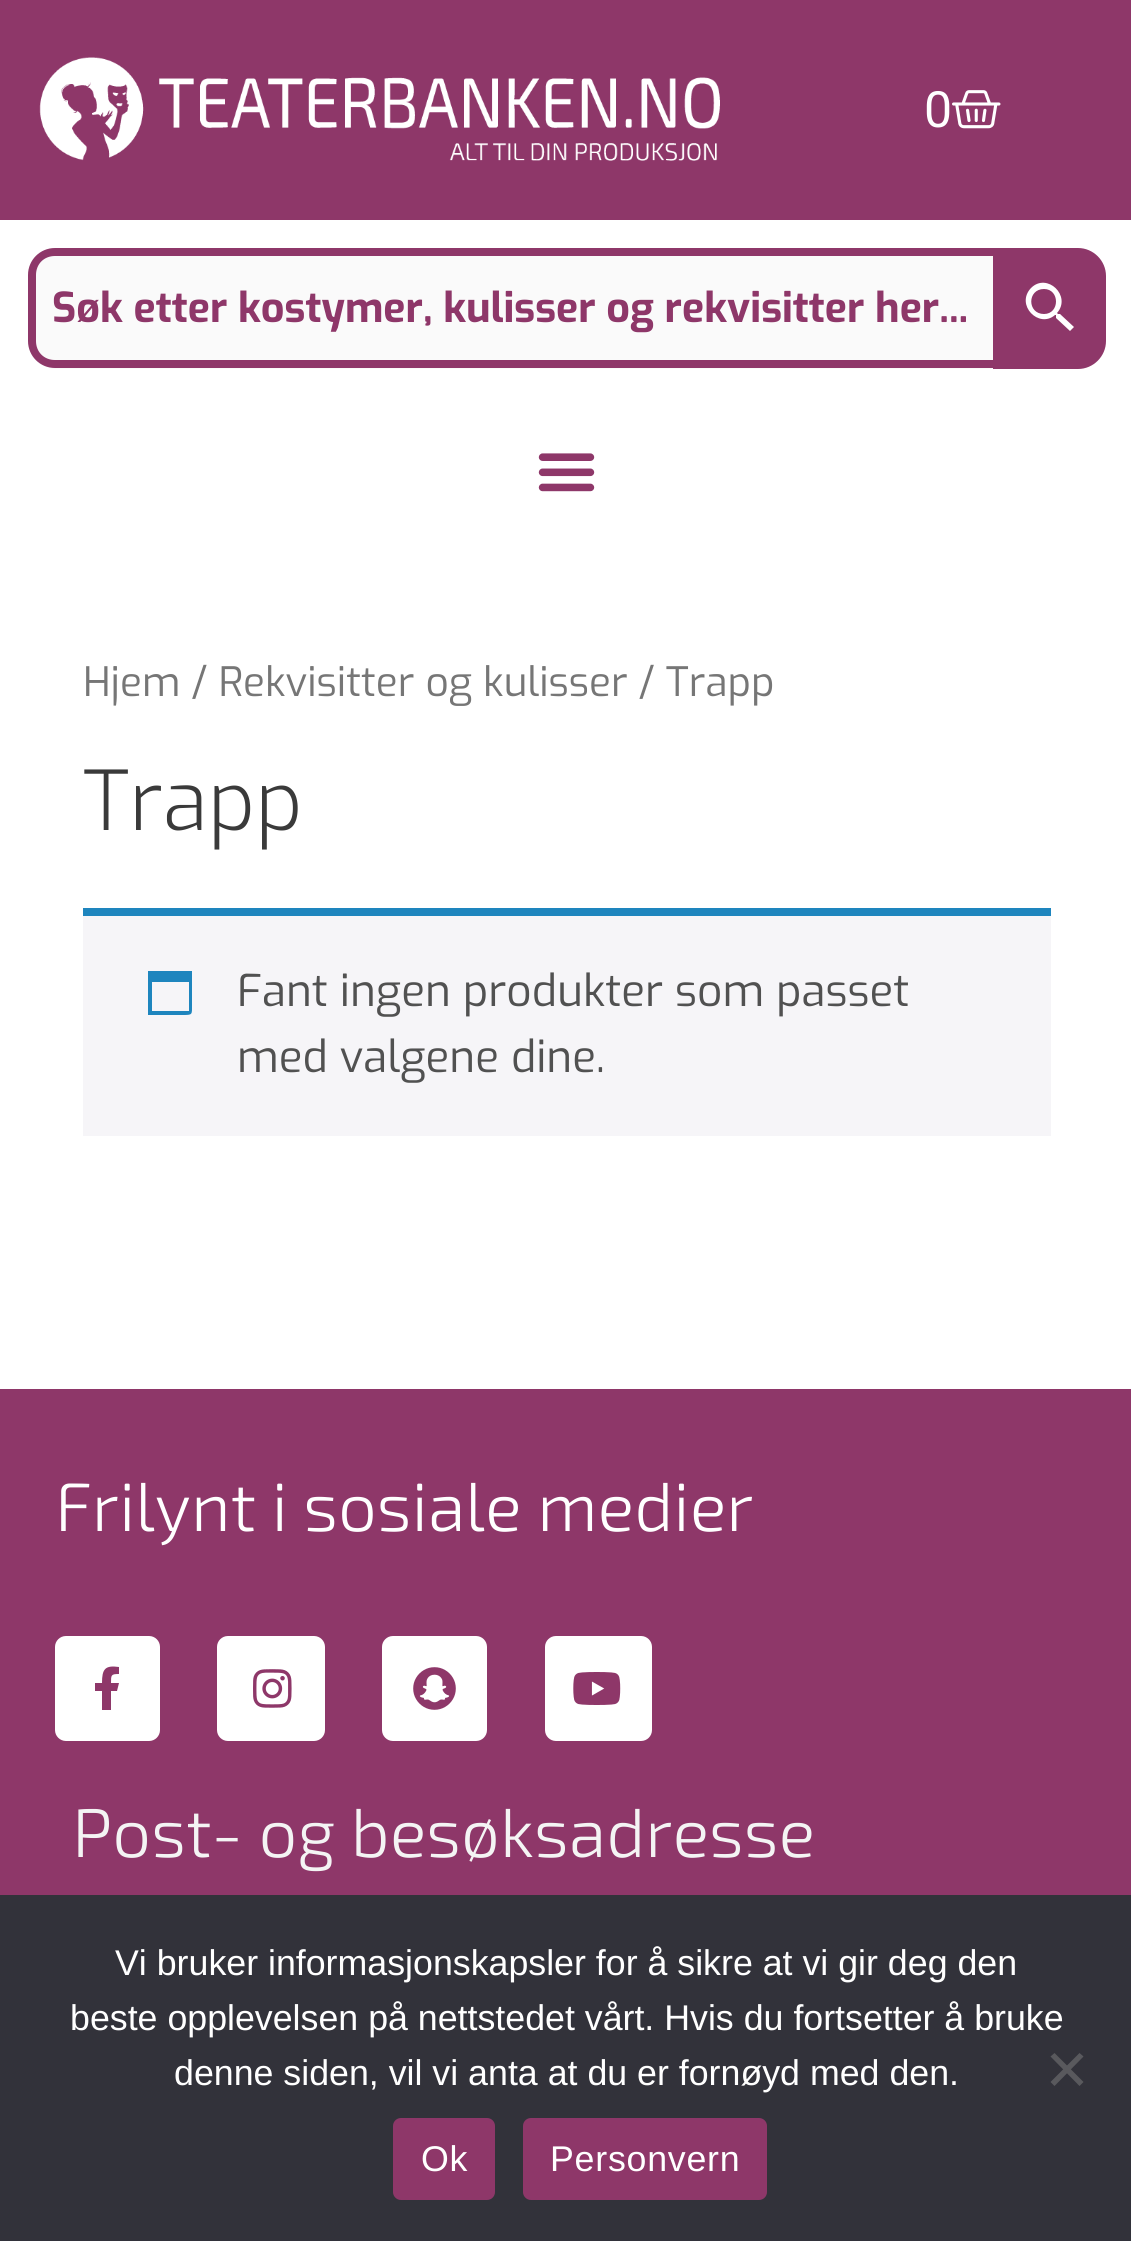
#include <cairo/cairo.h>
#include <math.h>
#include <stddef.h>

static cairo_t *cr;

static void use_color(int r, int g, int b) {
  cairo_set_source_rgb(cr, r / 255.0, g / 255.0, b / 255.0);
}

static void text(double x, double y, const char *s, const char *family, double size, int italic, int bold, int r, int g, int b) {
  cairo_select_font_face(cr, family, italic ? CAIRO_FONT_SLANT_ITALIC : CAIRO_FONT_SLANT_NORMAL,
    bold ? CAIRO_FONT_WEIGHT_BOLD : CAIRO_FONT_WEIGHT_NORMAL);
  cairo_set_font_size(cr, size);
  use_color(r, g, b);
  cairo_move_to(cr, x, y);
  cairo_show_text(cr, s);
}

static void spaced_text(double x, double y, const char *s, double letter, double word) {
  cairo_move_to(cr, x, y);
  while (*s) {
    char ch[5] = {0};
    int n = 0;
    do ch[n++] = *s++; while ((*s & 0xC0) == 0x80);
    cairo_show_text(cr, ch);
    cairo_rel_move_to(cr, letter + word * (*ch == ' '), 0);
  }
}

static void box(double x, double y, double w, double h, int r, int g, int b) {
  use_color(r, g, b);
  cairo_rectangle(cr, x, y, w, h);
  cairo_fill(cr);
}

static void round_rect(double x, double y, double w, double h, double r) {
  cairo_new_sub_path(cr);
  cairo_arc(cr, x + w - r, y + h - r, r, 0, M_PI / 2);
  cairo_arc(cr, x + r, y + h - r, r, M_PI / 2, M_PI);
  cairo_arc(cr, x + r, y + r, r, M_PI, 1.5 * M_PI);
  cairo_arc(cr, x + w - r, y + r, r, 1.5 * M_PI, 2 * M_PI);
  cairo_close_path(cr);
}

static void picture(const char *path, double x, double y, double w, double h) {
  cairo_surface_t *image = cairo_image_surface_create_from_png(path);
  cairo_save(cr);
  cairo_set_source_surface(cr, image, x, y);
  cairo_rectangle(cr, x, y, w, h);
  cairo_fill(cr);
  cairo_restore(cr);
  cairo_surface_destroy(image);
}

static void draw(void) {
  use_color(255, 255, 255);
  cairo_paint(cr);
  box(0, 0, 1131, 220, 142, 55, 105);
  picture("img_01.png", 39, 57, 681, 104);
  picture("img_02.png", 952, 90, 49, 39);
  cairo_new_path(cr);
  cairo_move_to(cr, 991.5, 249.5);
  cairo_line_to(cr, 1078, 249.5);
  cairo_curve_to(cr, 1092.5, 249.5, 1104.5, 261.5, 1104.5, 276);
  cairo_line_to(cr, 1104.5, 341);
  cairo_curve_to(cr, 1104.5, 355.5, 1092.5, 367.5, 1078, 367.5);
  cairo_line_to(cr, 991.5, 367.5);
  cairo_close_path(cr);
  cairo_fill_preserve(cr);
  cairo_set_line_width(cr, 3);
  cairo_stroke(cr);
  use_color(250, 250, 250);
  cairo_new_path(cr);
  cairo_move_to(cr, 56, 248);
  cairo_line_to(cr, 993, 248);
  cairo_line_to(cr, 993, 369);
  cairo_line_to(cr, 56, 369);
  cairo_curve_to(cr, 40.5, 369, 28, 356.5, 28, 341);
  cairo_line_to(cr, 28, 276);
  cairo_curve_to(cr, 28, 260.5, 40.5, 248, 56, 248);
  cairo_close_path(cr);
  cairo_fill(cr);
  use_color(142, 55, 105);
  cairo_set_fill_rule(cr, CAIRO_FILL_RULE_EVEN_ODD);
  cairo_new_path(cr);
  cairo_move_to(cr, 55, 248);
  cairo_line_to(cr, 993, 248);
  cairo_line_to(cr, 993, 368);
  cairo_line_to(cr, 55, 368);
  cairo_curve_to(cr, 40, 368, 28, 356, 28, 341);
  cairo_line_to(cr, 28, 275);
  cairo_curve_to(cr, 28, 260, 40, 248, 55, 248);
  cairo_close_path(cr);
  cairo_move_to(cr, 55, 256);
  cairo_line_to(cr, 993, 256);
  cairo_line_to(cr, 993, 360);
  cairo_line_to(cr, 55, 360);
  cairo_curve_to(cr, 44, 360, 36, 352, 36, 341);
  cairo_line_to(cr, 36, 275);
  cairo_curve_to(cr, 36, 264, 44, 256, 55, 256);
  cairo_close_path(cr);
  cairo_fill(cr);
  use_color(255, 255, 255);
  cairo_set_fill_rule(cr, CAIRO_FILL_RULE_WINDING);
  cairo_new_path(cr);
  cairo_move_to(cr, 1060, 314);
  cairo_line_to(cr, 1058, 314);
  cairo_line_to(cr, 1057, 313);
  cairo_curve_to(cr, 1072, 296, 1047, 272, 1031, 288);
  cairo_curve_to(cr, 1015, 305, 1039, 329, 1055, 315);
  cairo_line_to(cr, 1056, 315);
  cairo_line_to(cr, 1056, 318);
  cairo_line_to(cr, 1070, 331);
  cairo_line_to(cr, 1074, 327);
  cairo_close_path(cr);
  cairo_move_to(cr, 1044, 314);
  cairo_curve_to(cr, 1027, 314, 1027, 289, 1044, 289);
  cairo_curve_to(cr, 1060, 289, 1060, 314, 1044, 314);
  cairo_close_path(cr);
  cairo_fill(cr);
  picture("img_03.png", 538, 453, 57, 39);
  box(83, 916, 968, 220, 246, 245, 248);
  box(83, 908, 968, 8, 30, 133, 190);
  cairo_new_path(cr);
  cairo_move_to(cr, 189, 982);
  cairo_line_to(cr, 152, 982);
  cairo_line_to(cr, 152, 1011);
  cairo_line_to(cr, 189, 1011);
  cairo_close_path(cr);
  cairo_move_to(cr, 192, 971);
  cairo_line_to(cr, 192, 1004);
  cairo_curve_to(cr, 192, 1015, 193, 1015, 182, 1015);
  cairo_line_to(cr, 148, 1015);
  cairo_line_to(cr, 148, 971);
  cairo_close_path(cr);
  cairo_fill(cr);
  box(0, 1389, 1131, 506, 142, 55, 105);
  use_color(255, 255, 255);
  round_rect(55, 1636, 105, 105, 11);
  cairo_fill(cr);
  use_color(142, 55, 105);
  cairo_new_path(cr);
  cairo_move_to(cr, 117, 1691);
  cairo_line_to(cr, 111, 1691);
  cairo_line_to(cr, 111, 1710);
  cairo_line_to(cr, 102, 1710);
  cairo_line_to(cr, 102, 1691);
  cairo_line_to(cr, 95, 1691);
  cairo_line_to(cr, 95, 1683);
  cairo_line_to(cr, 102, 1683);
  cairo_curve_to(cr, 102, 1669, 105, 1665, 119, 1667);
  cairo_line_to(cr, 119, 1674);
  cairo_curve_to(cr, 111, 1674, 111, 1675, 111, 1683);
  cairo_line_to(cr, 119, 1683);
  cairo_close_path(cr);
  cairo_fill(cr);
  use_color(255, 255, 255);
  round_rect(217, 1636, 108, 105, 11);
  cairo_fill(cr);
  picture("img_04.png", 253, 1669, 39, 39);
  round_rect(382, 1636, 105, 105, 11);
  cairo_fill(cr);
  picture("img_05.png", 413, 1667, 43, 43);
  round_rect(545, 1636, 107, 105, 11);
  cairo_fill(cr);
  picture("img_06.png", 573, 1672, 48, 33);
  box(0, 1895, 1131, 346, 50, 50, 58);
  use_color(89, 89, 93);
  cairo_new_path(cr);
  cairo_move_to(cr, 1079.5, 2053);
  cairo_line_to(cr, 1083.5, 2056.5);
  cairo_line_to(cr, 1054.5, 2086);
  cairo_line_to(cr, 1050.5, 2082);
  cairo_close_path(cr);
  cairo_fill(cr);
  cairo_new_path(cr);
  cairo_move_to(cr, 1050.5, 2056.5);
  cairo_line_to(cr, 1054.5, 2053);
  cairo_line_to(cr, 1083.5, 2082);
  cairo_line_to(cr, 1079.5, 2086);
  cairo_close_path(cr);
  cairo_fill(cr);
  use_color(142, 55, 105);
  round_rect(393, 2118, 102, 82, 8);
  cairo_fill(cr);
  round_rect(523, 2118, 244, 82, 8);
  cairo_fill(cr);
  text(924, 127, "0", "Roboto", 50, 0, 0, 255, 255, 255);
  text(52, 322, "Søk etter kostymer, kulisser og rekvisitter her...", "Exo", 41.25, 0, 1, 142, 55, 105);
  text(83, 696, "Hjem / Rekvisitter og kulisser / Trapp", "Exo", 40.5, 0, 0, 118, 118, 118);
  text(83, 830, "Trapp", "Exo Light", 82.5, 0, 0, 58, 58, 58);
  text(237, 1006, "Fant ingen produkter som passet", "Exo", 44, 0, 0, 81, 81, 81);
  text(237, 1072, "med valgene dine.", "Exo", 44, 0, 0, 81, 81, 81);
  text(55, 1531, "Frilynt i sosiale medier", "Exo 2 Light", 68.75, 0, 0, 255, 255, 255);
  text(72, 1857, "Post- og besøksadresse", "Exo 2 Light", 68.75, 0, 0, 244, 244, 244);
  text(115, 1975, "Vi bruker informasjonskapsler for å sikre at vi gir deg den", "Liberation Sans", 35.75, 0, 0, 255, 255, 255);
  text(70, 2030, "beste opplevelsen på nettstedet vårt. Hvis du fortsetter å bruke", "Liberation Sans", 35.75, 0, 0, 255, 255, 255);
  text(174, 2085, "denne siden, vil vi anta at du er fornøyd med den.", "Liberation Sans", 35.75, 0, 0, 255, 255, 255);
  spaced_text(421, 2171, "Ok", 0.75, 0);
  spaced_text(550, 2171, "Personvern", 0.75, 0);
}

int main(void) {
  cairo_surface_t *surface = cairo_image_surface_create(CAIRO_FORMAT_RGB24, 1131, 2241);
  cr = cairo_create(surface);
  cairo_font_options_t *options = cairo_font_options_create();
  cairo_font_options_set_hint_metrics(options, CAIRO_HINT_METRICS_OFF);
  cairo_font_options_set_hint_style(options, CAIRO_HINT_STYLE_NONE);
  cairo_set_font_options(cr, options);
  cairo_set_miter_limit(cr, 4);
  draw();
  cairo_surface_write_to_png(surface, "out.png");
  cairo_font_options_destroy(options);
  cairo_destroy(cr);
  cairo_surface_destroy(surface);
  return 0;
}
